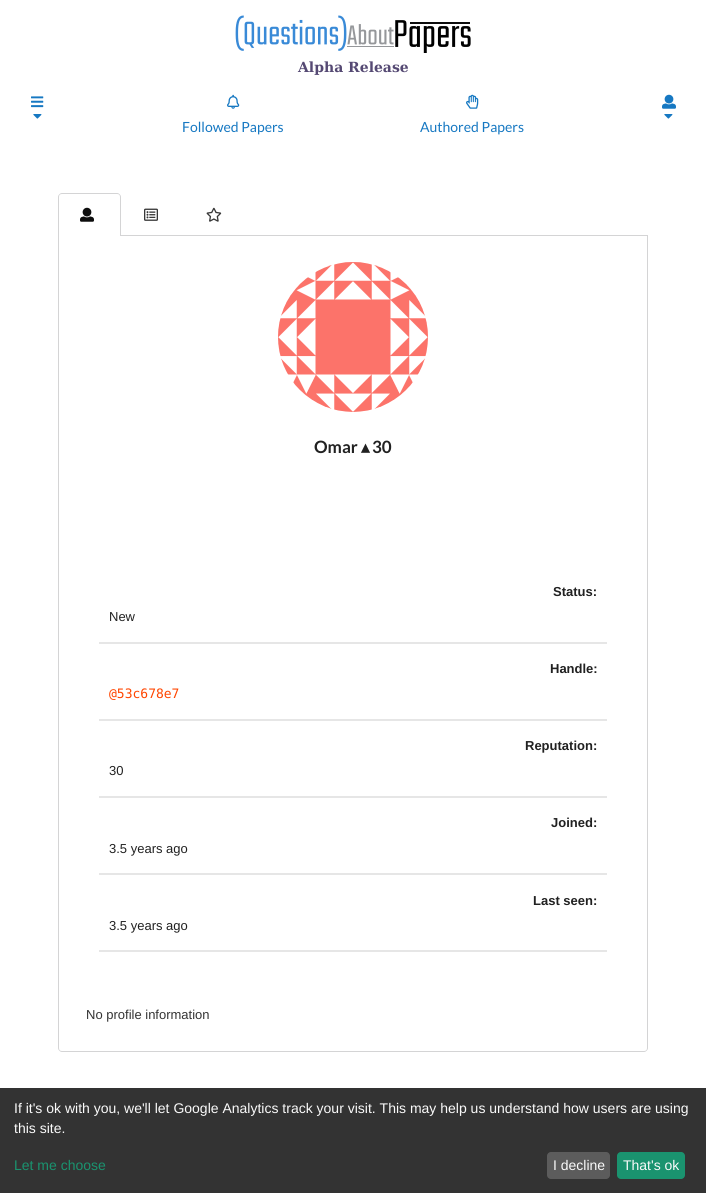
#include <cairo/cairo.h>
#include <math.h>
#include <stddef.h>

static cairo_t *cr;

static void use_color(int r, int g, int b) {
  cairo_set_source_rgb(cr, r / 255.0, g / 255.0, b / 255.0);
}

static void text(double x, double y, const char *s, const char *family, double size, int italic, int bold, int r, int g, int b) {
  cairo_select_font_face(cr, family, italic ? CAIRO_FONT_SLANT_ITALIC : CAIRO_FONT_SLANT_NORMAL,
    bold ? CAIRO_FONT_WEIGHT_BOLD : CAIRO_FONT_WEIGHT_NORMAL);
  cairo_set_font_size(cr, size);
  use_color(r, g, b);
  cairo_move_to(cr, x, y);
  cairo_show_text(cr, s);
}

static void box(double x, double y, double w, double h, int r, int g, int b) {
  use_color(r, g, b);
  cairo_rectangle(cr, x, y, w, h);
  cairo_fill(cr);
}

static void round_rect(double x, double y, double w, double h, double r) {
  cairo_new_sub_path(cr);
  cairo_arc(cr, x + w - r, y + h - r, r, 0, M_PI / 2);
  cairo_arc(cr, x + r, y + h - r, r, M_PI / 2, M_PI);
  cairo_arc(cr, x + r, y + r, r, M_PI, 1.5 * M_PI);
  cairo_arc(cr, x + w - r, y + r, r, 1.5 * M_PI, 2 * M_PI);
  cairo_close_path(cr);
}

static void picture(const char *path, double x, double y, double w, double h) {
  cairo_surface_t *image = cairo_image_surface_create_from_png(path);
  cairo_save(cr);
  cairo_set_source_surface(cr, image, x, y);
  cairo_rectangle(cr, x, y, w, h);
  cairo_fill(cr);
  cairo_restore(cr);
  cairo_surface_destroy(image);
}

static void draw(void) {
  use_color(255, 255, 255);
  cairo_paint(cr);
  picture("img_01.png", 235, 15, 236, 38);
  picture("img_02.png", 31, 96, 13, 12);
  picture("img_03.png", 33, 114, 9, 5);
  picture("img_04.png", 662, 94, 14, 15);
  picture("img_03.png", 664, 114, 9, 5);
  picture("img_05.png", 227, 94, 13, 15);
  picture("img_06.png", 466, 94, 13, 15);
  box(121, 235, 527, 1, 212, 212, 213);
  cairo_set_fill_rule(cr, CAIRO_FILL_RULE_EVEN_ODD);
  cairo_new_path(cr);
  cairo_move_to(cr, 62, 193);
  cairo_line_to(cr, 117, 193);
  cairo_curve_to(cr, 119, 193, 121, 195, 121, 197);
  cairo_line_to(cr, 121, 236);
  cairo_line_to(cr, 58, 236);
  cairo_line_to(cr, 58, 197);
  cairo_curve_to(cr, 58, 195, 60, 193, 62, 193);
  cairo_close_path(cr);
  cairo_move_to(cr, 62, 194);
  cairo_line_to(cr, 117, 194);
  cairo_curve_to(cr, 119, 194, 120, 195, 120, 197);
  cairo_line_to(cr, 120, 236);
  cairo_line_to(cr, 59, 236);
  cairo_line_to(cr, 59, 197);
  cairo_curve_to(cr, 59, 195, 60, 194, 62, 194);
  cairo_close_path(cr);
  cairo_fill(cr);
  picture("img_07.png", 80, 207, 14, 15);
  picture("img_08.png", 144, 208, 14, 13);
  picture("img_09.png", 206, 207, 16, 15);
  cairo_new_path(cr);
  cairo_move_to(cr, 58, 236);
  cairo_line_to(cr, 648, 236);
  cairo_line_to(cr, 648, 1048);
  cairo_curve_to(cr, 648, 1050, 646, 1052, 644, 1052);
  cairo_line_to(cr, 62, 1052);
  cairo_curve_to(cr, 60, 1052, 58, 1050, 58, 1048);
  cairo_close_path(cr);
  cairo_move_to(cr, 59, 236);
  cairo_line_to(cr, 647, 236);
  cairo_line_to(cr, 647, 1048);
  cairo_curve_to(cr, 647, 1050, 646, 1051, 644, 1051);
  cairo_line_to(cr, 62, 1051);
  cairo_curve_to(cr, 60, 1051, 59, 1050, 59, 1048);
  cairo_close_path(cr);
  cairo_fill(cr);
  picture("img_10.png", 278, 262, 150, 150);
  box(99, 642, 508, 2, 230, 230, 230);
  box(99, 719, 508, 2, 230, 230, 230);
  box(99, 796, 508, 2, 230, 230, 230);
  box(99, 873, 508, 2, 230, 230, 230);
  box(99, 950, 508, 2, 230, 230, 230);
  box(0, 1088, 706, 105, 51, 51, 51);
  use_color(92, 92, 92);
  round_rect(547, 1152, 63, 27, 4);
  cairo_fill(cr);
  use_color(26, 147, 111);
  round_rect(617, 1152, 68, 27, 4);
  cairo_fill(cr);
  text(298, 72, "Alpha Release", "DejaVu Serif", 14, 0, 1, 85, 73, 115);
  text(182, 132, "Followed Papers", "Lato", 14, 0, 0, 22, 120, 194);
  text(420, 132, "Authored Papers", "Lato", 14, 0, 0, 22, 120, 194);
  text(314, 453, "Omar", "Lato", 17, 0, 1, 33, 33, 33);
  text(361, 453, "▴", "DejaVu Sans", 17, 0, 1, 33, 33, 33);
  text(372, 453, "30", "Lato", 17, 0, 1, 33, 33, 33);
  text(553, 596, "Status:", "Liberation Sans", 13, 0, 1, 33, 33, 33);
  text(109, 621, "New", "Liberation Sans", 13, 0, 0, 33, 33, 33);
  text(550, 673, "Handle:", "Liberation Sans", 13, 0, 1, 33, 33, 33);
  text(109, 698, "@53c678e7", "DejaVu Sans Mono", 13, 0, 0, 255, 69, 0);
  text(525, 750, "Reputation:", "Liberation Sans", 13, 0, 1, 33, 33, 33);
  text(109, 775, "30", "Liberation Sans", 13, 0, 0, 33, 33, 33);
  text(551, 827, "Joined:", "Liberation Sans", 13, 0, 1, 33, 33, 33);
  text(109, 853, "3.5 years ago", "Liberation Sans", 13, 0, 0, 33, 33, 33);
  text(533, 905, "Last seen:", "Liberation Sans", 13, 0, 1, 33, 33, 33);
  text(109, 930, "3.5 years ago", "Liberation Sans", 13, 0, 0, 33, 33, 33);
  text(86, 1019, "No profile information", "Liberation Sans", 13, 0, 0, 51, 51, 51);
  text(14, 1113, "If it's ok with you, we'll let Google Analytics track your visit. This may help us understand how users are using", "Liberation Sans", 14, 0, 0, 250, 250, 250);
  text(14, 1133, "this site.", "Liberation Sans", 14, 0, 0, 250, 250, 250);
  text(14, 1170, "Let me choose", "Liberation Sans", 14, 0, 0, 26, 147, 111);
  text(553, 1170, "I decline", "Liberation Sans", 14, 0, 0, 250, 250, 250);
  text(623, 1170, "That's ok", "Liberation Sans", 14, 0, 0, 250, 250, 250);
}

int main(void) {
  cairo_surface_t *surface = cairo_image_surface_create(CAIRO_FORMAT_RGB24, 706, 1193);
  cr = cairo_create(surface);
  cairo_font_options_t *options = cairo_font_options_create();
  cairo_font_options_set_hint_metrics(options, CAIRO_HINT_METRICS_OFF);
  cairo_font_options_set_hint_style(options, CAIRO_HINT_STYLE_NONE);
  cairo_set_font_options(cr, options);
  cairo_set_miter_limit(cr, 4);
  draw();
  cairo_surface_write_to_png(surface, "out.png");
  cairo_font_options_destroy(options);
  cairo_destroy(cr);
  cairo_surface_destroy(surface);
  return 0;
}
